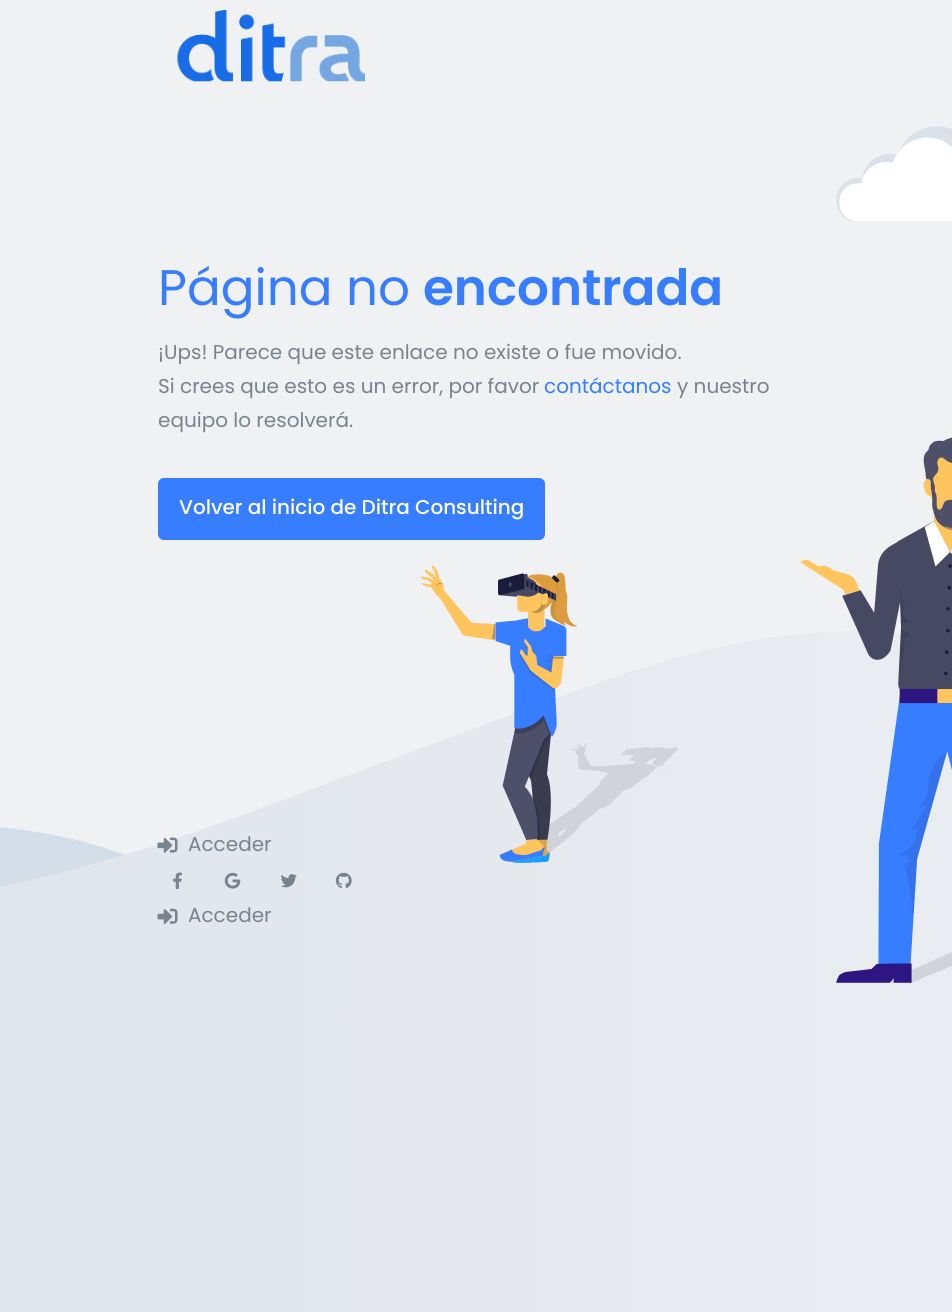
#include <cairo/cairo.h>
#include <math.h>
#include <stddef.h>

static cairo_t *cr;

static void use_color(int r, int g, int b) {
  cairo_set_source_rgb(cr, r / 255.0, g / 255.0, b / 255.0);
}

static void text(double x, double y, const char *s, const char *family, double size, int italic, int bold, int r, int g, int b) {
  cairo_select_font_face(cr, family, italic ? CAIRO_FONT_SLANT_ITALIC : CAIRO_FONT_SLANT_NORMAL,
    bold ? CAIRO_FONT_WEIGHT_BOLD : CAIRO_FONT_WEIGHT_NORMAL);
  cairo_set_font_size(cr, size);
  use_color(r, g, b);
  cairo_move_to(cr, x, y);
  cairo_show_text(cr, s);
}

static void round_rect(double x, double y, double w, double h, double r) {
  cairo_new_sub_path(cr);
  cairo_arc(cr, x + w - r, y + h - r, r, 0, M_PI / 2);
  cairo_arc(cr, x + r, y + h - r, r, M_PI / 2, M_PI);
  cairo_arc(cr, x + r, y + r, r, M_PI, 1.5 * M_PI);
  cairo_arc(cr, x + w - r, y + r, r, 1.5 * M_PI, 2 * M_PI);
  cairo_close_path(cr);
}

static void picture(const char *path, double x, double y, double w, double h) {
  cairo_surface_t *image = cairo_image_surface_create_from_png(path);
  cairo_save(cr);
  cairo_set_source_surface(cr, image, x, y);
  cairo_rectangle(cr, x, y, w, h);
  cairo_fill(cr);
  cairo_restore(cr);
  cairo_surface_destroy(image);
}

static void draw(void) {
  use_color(255, 255, 255);
  cairo_paint(cr);
  picture("img_01.png", 0, 0, 952, 1312);
  picture("img_02.png", 177, 10, 188, 72);
  use_color(55, 125, 255);
  round_rect(158.5, 478.5, 386, 61, 5.5);
  cairo_fill_preserve(cr);
  cairo_set_line_width(cr, 1);
  cairo_stroke(cr);
  picture("img_03.png", 157, 837, 21, 16);
  picture("img_04.png", 173, 872, 9, 17);
  picture("img_05.png", 224, 872, 17, 17);
  picture("img_06.png", 281, 874, 16, 14);
  picture("img_07.png", 335, 872, 17, 17);
  picture("img_08.png", 157, 908, 21, 16);
  text(158, 305, "Página no", "Poppins", 50, 0, 0, 55, 125, 255);
  text(423, 305, "encontrada", "Poppins SemiBold", 50, 0, 0, 55, 125, 255);
  text(158, 359, "¡Ups! Parece que este enlace no existe o fue movido.", "Poppins", 20, 0, 0, 119, 131, 143);
  text(158, 393, "Si crees que esto es un error, por favor", "Poppins", 20, 0, 0, 119, 131, 143);
  text(544, 393, "contáctanos", "Poppins", 20, 0, 0, 55, 125, 255);
  text(677, 393, "y nuestro", "Poppins", 20, 0, 0, 119, 131, 143);
  text(158, 427, "equipo lo resolverá.", "Poppins", 20, 0, 0, 119, 131, 143);
  text(179, 514, "Volver al inicio de Ditra Consulting", "Poppins Medium", 20, 0, 0, 255, 255, 255);
  text(188, 851, "Acceder", "Poppins", 20, 0, 0, 119, 131, 143);
  text(188, 922, "Acceder", "Poppins", 20, 0, 0, 119, 131, 143);
}

int main(void) {
  cairo_surface_t *surface = cairo_image_surface_create(CAIRO_FORMAT_RGB24, 952, 1312);
  cr = cairo_create(surface);
  cairo_font_options_t *options = cairo_font_options_create();
  cairo_font_options_set_hint_metrics(options, CAIRO_HINT_METRICS_OFF);
  cairo_font_options_set_hint_style(options, CAIRO_HINT_STYLE_NONE);
  cairo_set_font_options(cr, options);
  cairo_set_miter_limit(cr, 4);
  draw();
  cairo_surface_write_to_png(surface, "out.png");
  cairo_font_options_destroy(options);
  cairo_destroy(cr);
  cairo_surface_destroy(surface);
  return 0;
}
